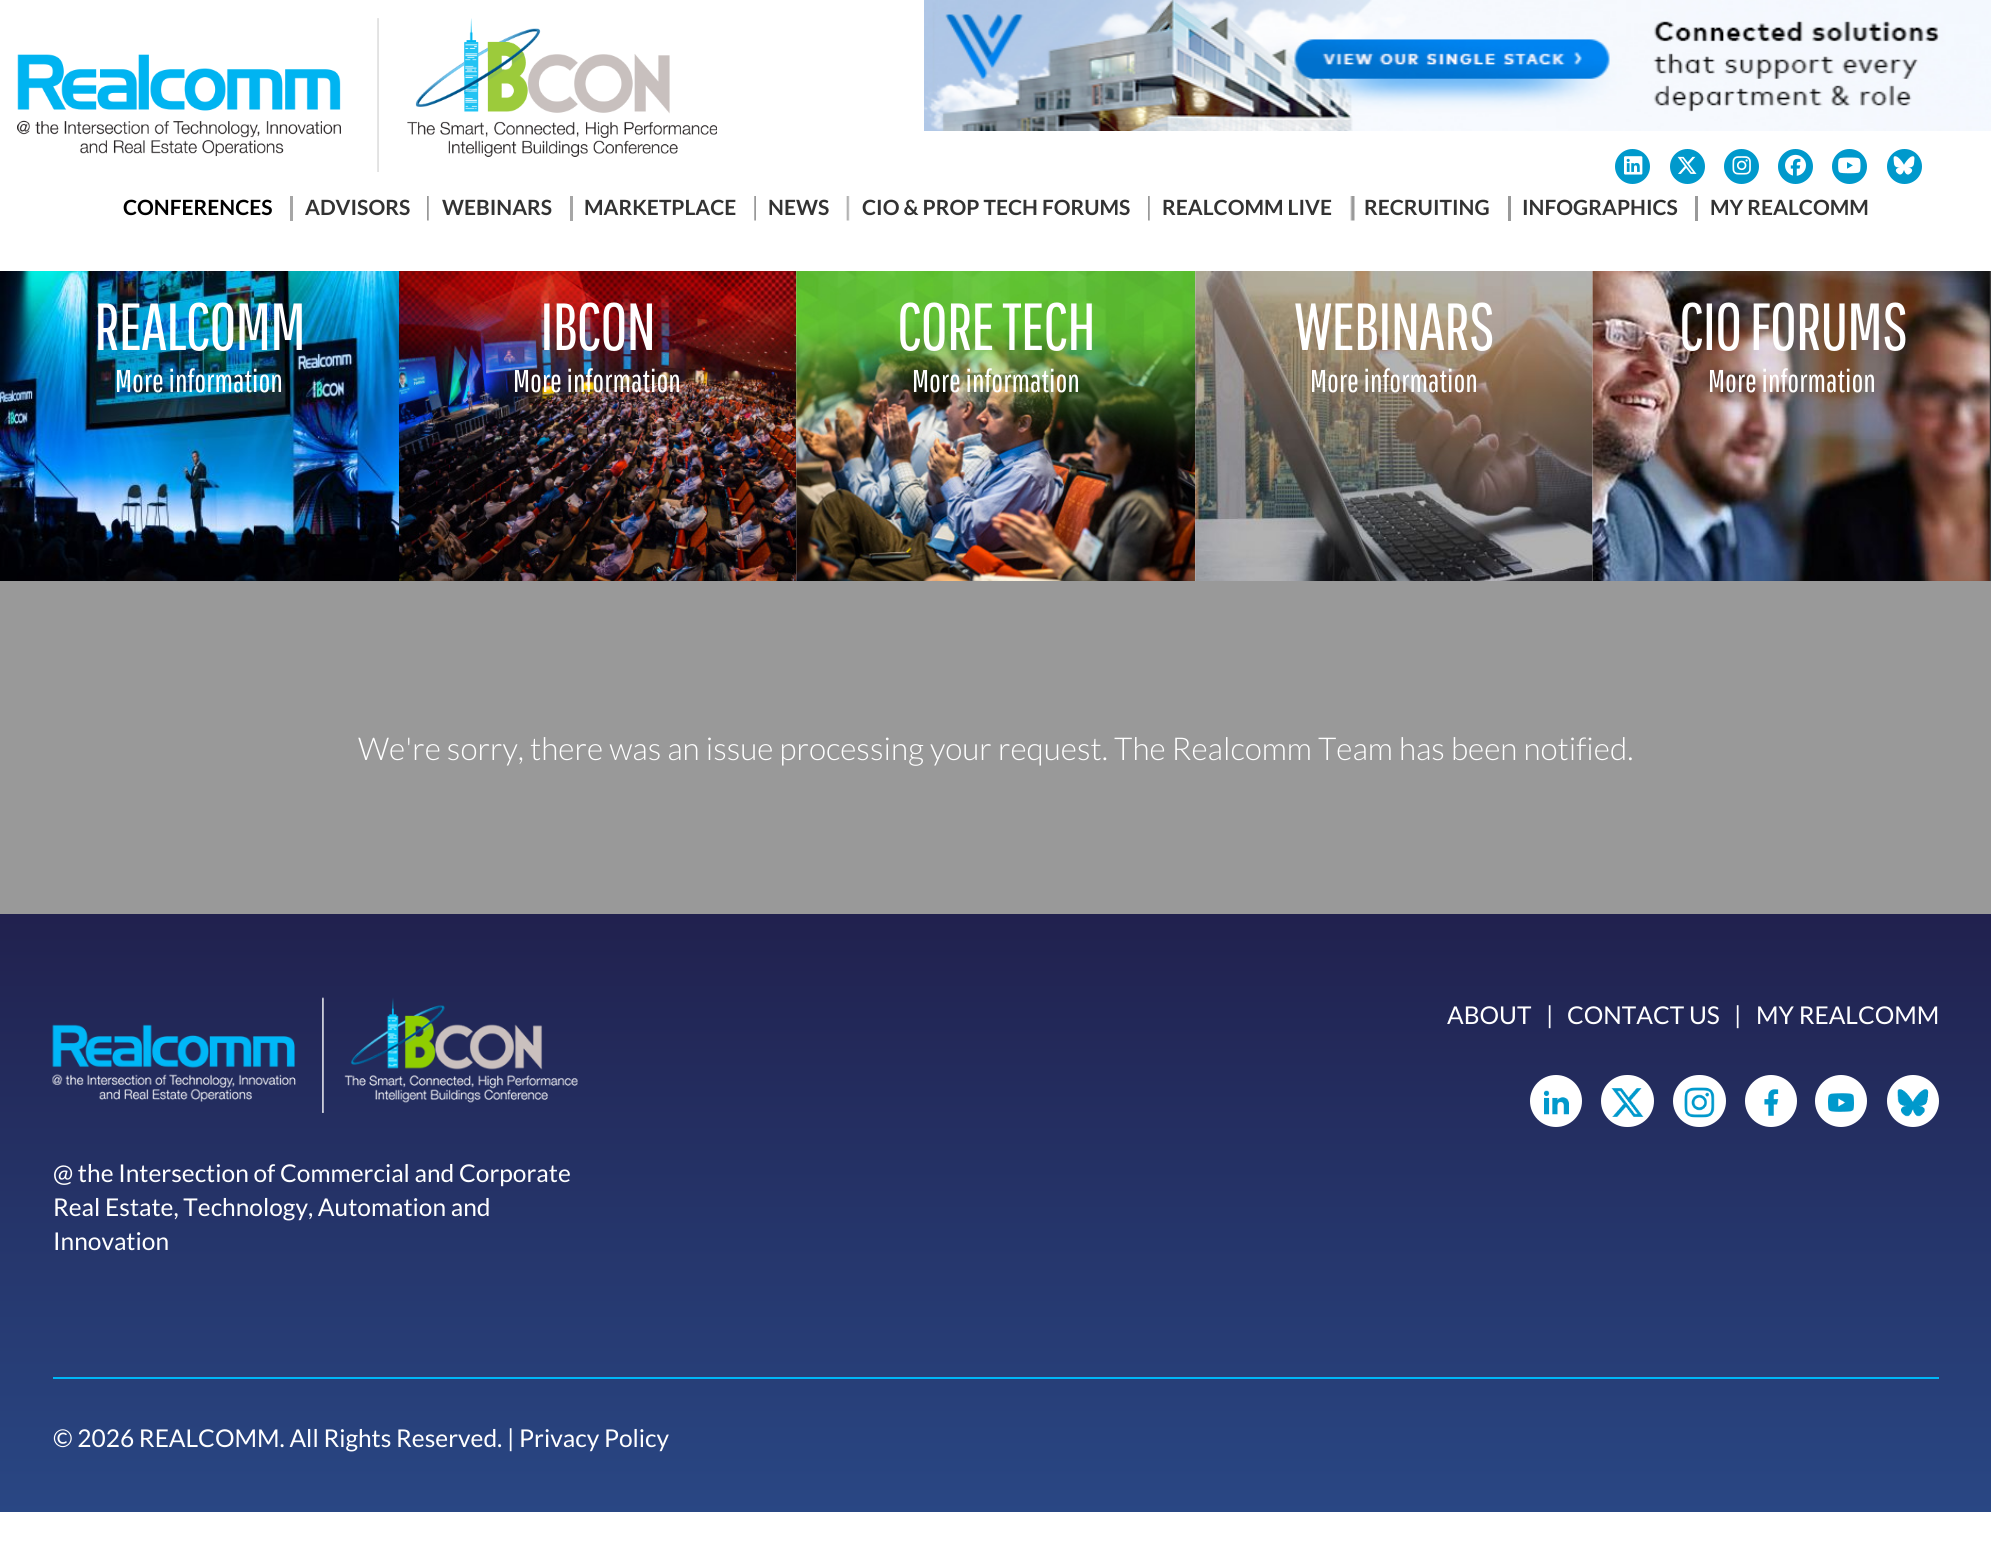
#include <cairo/cairo.h>
#include <math.h>
#include <stddef.h>

static cairo_t *cr;

static void use_color(int r, int g, int b) {
  cairo_set_source_rgb(cr, r / 255.0, g / 255.0, b / 255.0);
}

static void text(double x, double y, const char *s, const char *family, double size, int italic, int bold, int r, int g, int b) {
  cairo_select_font_face(cr, family, italic ? CAIRO_FONT_SLANT_ITALIC : CAIRO_FONT_SLANT_NORMAL,
    bold ? CAIRO_FONT_WEIGHT_BOLD : CAIRO_FONT_WEIGHT_NORMAL);
  cairo_set_font_size(cr, size);
  use_color(r, g, b);
  cairo_move_to(cr, x, y);
  cairo_show_text(cr, s);
}

static void spaced_text(double x, double y, const char *s, double letter, double word) {
  cairo_move_to(cr, x, y);
  while (*s) {
    char ch[5] = {0};
    int n = 0;
    do ch[n++] = *s++; while ((*s & 0xC0) == 0x80);
    cairo_show_text(cr, ch);
    cairo_rel_move_to(cr, letter + word * (*ch == ' '), 0);
  }
}

static void box(double x, double y, double w, double h, int r, int g, int b) {
  use_color(r, g, b);
  cairo_rectangle(cr, x, y, w, h);
  cairo_fill(cr);
}

static void round_rect(double x, double y, double w, double h, double r) {
  cairo_new_sub_path(cr);
  cairo_arc(cr, x + w - r, y + h - r, r, 0, M_PI / 2);
  cairo_arc(cr, x + r, y + h - r, r, M_PI / 2, M_PI);
  cairo_arc(cr, x + r, y + r, r, M_PI, 1.5 * M_PI);
  cairo_arc(cr, x + w - r, y + r, r, 1.5 * M_PI, 2 * M_PI);
  cairo_close_path(cr);
}

static void picture(const char *path, double x, double y, double w, double h) {
  cairo_surface_t *image = cairo_image_surface_create_from_png(path);
  cairo_save(cr);
  cairo_set_source_surface(cr, image, x, y);
  cairo_rectangle(cr, x, y, w, h);
  cairo_fill(cr);
  cairo_restore(cr);
  cairo_surface_destroy(image);
}

static void draw(void) {
  cairo_pattern_t *gradient;
  use_color(255, 255, 255);
  cairo_paint(cr);
  picture("img_01.png", 17, 18, 700, 154);
  picture("img_02.png", 924, 0, 1067, 131);
  use_color(0, 153, 204);
  cairo_arc(cr, 1632.5, 166.5, 17.5, 0, 2 * M_PI);
  cairo_fill(cr);
  picture("img_03.png", 1624, 156, 19, 19);
  cairo_arc(cr, 1687.5, 166.5, 17.5, 0, 2 * M_PI);
  cairo_fill(cr);
  picture("img_04.png", 1677, 156, 20, 18);
  cairo_arc(cr, 1741.5, 166.5, 17.5, 0, 2 * M_PI);
  cairo_fill(cr);
  picture("img_05.png", 1732, 156, 19, 19);
  cairo_arc(cr, 1795.5, 166.5, 17.5, 0, 2 * M_PI);
  cairo_fill(cr);
  picture("img_06.png", 1785, 154, 21, 22);
  cairo_arc(cr, 1849.5, 166.5, 17.5, 0, 2 * M_PI);
  cairo_fill(cr);
  picture("img_07.png", 1838, 157, 23, 17);
  cairo_arc(cr, 1904.5, 166.5, 17.5, 0, 2 * M_PI);
  cairo_fill(cr);
  picture("img_08.png", 1893, 156, 22, 19);
  box(290, 196, 3, 25, 166, 166, 166);
  picture("img_09.png", 427, 196, 2, 25);
  box(570, 196, 3, 25, 166, 166, 166);
  picture("img_10.png", 754, 196, 2, 25);
  picture("img_11.png", 846, 196, 4, 25);
  picture("img_09.png", 1148, 196, 2, 25);
  picture("img_12.png", 1350, 196, 5, 25);
  box(1508, 196, 3, 25, 153, 153, 153);
  box(1695, 196, 3, 25, 153, 153, 153);
  picture("img_13.png", 0, 271, 399, 310);
  picture("img_14.png", 399, 271, 398, 310);
  picture("img_15.png", 796, 271, 400, 310);
  picture("img_16.png", 1195, 271, 398, 310);
  box(1989, 271, 2, 310, 61, 61, 61);
  picture("img_17.png", 1592, 271, 398, 310);
  box(0, 581, 1991, 333, 153, 153, 153);
  gradient = cairo_pattern_create_linear(996, 914, 996, 1512);
  cairo_pattern_add_color_stop_rgba(gradient, 0, 0.129, 0.129, 0.306, 1);
  cairo_pattern_add_color_stop_rgba(gradient, 1, 0.161, 0.278, 0.518, 1);
  cairo_set_source(cr, gradient);
  cairo_pattern_destroy(gradient);
  cairo_rectangle(cr, 0, 914, 1991, 598);
  cairo_fill(cr);
  use_color(255, 255, 255);
  cairo_arc(cr, 1556, 1101, 26, 0, 2 * M_PI);
  cairo_fill(cr);
  picture("img_18.png", 1543, 1090, 26, 25);
  round_rect(1601, 1075, 53, 52, 26);
  cairo_fill(cr);
  picture("img_19.png", 1611, 1088, 33, 29);
  round_rect(1673, 1075, 53, 52, 26);
  cairo_fill(cr);
  picture("img_20.png", 1684, 1087, 31, 31);
  cairo_arc(cr, 1771, 1101, 26, 0, 2 * M_PI);
  cairo_fill(cr);
  picture("img_21.png", 1764, 1089, 15, 27);
  cairo_arc(cr, 1841, 1101, 26, 0, 2 * M_PI);
  cairo_fill(cr);
  picture("img_22.png", 1828, 1093, 26, 19);
  cairo_arc(cr, 1913, 1101, 26, 0, 2 * M_PI);
  cairo_fill(cr);
  picture("img_23.png", 1897, 1089, 32, 28);
  picture("img_24.png", 52, 997, 526, 116);
  box(53, 1377, 1886, 2, 0, 183, 247);
  text(123, 215, "CONFERENCES", "Lato", 21, 0, 1, 0, 0, 0);
  text(305, 215, "ADVISORS", "Lato", 21, 0, 1, 51, 51, 51);
  text(442, 215, "WEBINARS", "Lato", 21, 0, 1, 51, 51, 51);
  text(584, 215, "MARKETPLACE", "Lato", 21, 0, 1, 51, 51, 51);
  text(768, 215, "NEWS", "Lato", 21, 0, 1, 51, 51, 51);
  text(862, 215, "CIO & PROP TECH FORUMS", "Lato", 21, 0, 1, 51, 51, 51);
  text(1162, 215, "REALCOMM LIVE", "Lato", 21, 0, 1, 51, 51, 51);
  text(1364, 215, "RECRUITING", "Lato", 21, 0, 1, 51, 51, 51);
  text(1522, 215, "INFOGRAPHICS", "Lato", 21, 0, 1, 51, 51, 51);
  text(1710, 215, "MY REALCOMM", "Lato", 21, 0, 1, 51, 51, 51);
  cairo_select_font_face(cr, "Pathway Gothic One", CAIRO_FONT_SLANT_NORMAL, CAIRO_FONT_WEIGHT_NORMAL);
  cairo_set_font_size(cr, 66.5);
  use_color(255, 255, 255);
  spaced_text(94, 350, "REALCOMM", -1.25, 0);
  text(115, 392, "More information", "Pathway Gothic One", 31.5, 0, 0, 255, 255, 255);
  cairo_set_font_size(cr, 66.5);
  spaced_text(540, 350, "IBCON", -1.25, 0);
  text(513, 392, "More information", "Pathway Gothic One", 31.5, 0, 0, 255, 255, 255);
  cairo_set_font_size(cr, 66.5);
  spaced_text(897, 350, "CORE TECH", -1.25, 0);
  text(912, 392, "More information", "Pathway Gothic One", 31.5, 0, 0, 255, 255, 255);
  cairo_set_font_size(cr, 66.5);
  spaced_text(1294, 350, "WEBINARS", -1.25, 0);
  text(1310, 392, "More information", "Pathway Gothic One", 31.5, 0, 0, 255, 255, 255);
  cairo_set_font_size(cr, 66.5);
  spaced_text(1679, 350, "CIO FORUMS", -1.25, 0);
  text(1708, 392, "More information", "Pathway Gothic One", 31.5, 0, 0, 255, 255, 255);
  text(358, 760, "We're sorry, there was an issue processing your request. The Realcomm Team has been notified.", "Lato Light", 31.5, 0, 0, 255, 255, 255);
  text(1447, 1024, "ABOUT", "Lato", 24.5, 0, 0, 255, 255, 255);
  text(1546, 1024, "|", "Lato", 24.5, 0, 0, 255, 255, 255);
  text(1567, 1024, "CONTACT US", "Lato", 24.5, 0, 0, 255, 255, 255);
  text(1734, 1024, "|", "Lato", 24.5, 0, 0, 255, 255, 255);
  text(1756, 1024, "MY REALCOMM", "Lato", 24.5, 0, 0, 255, 255, 255);
  text(53, 1182, "@ the Intersection of Commercial and Corporate", "Lato", 24.5, 0, 0, 255, 255, 255);
  text(53, 1216, "Real Estate, Technology, Automation and", "Lato", 24.5, 0, 0, 255, 255, 255);
  text(53, 1250, "Innovation", "Lato", 24.5, 0, 0, 255, 255, 255);
  text(53, 1447, "© 2026 REALCOMM. All Rights Reserved. | Privacy Policy", "Lato", 24.5, 0, 0, 255, 255, 255);
}

int main(void) {
  cairo_surface_t *surface = cairo_image_surface_create(CAIRO_FORMAT_RGB24, 1991, 1558);
  cr = cairo_create(surface);
  cairo_font_options_t *options = cairo_font_options_create();
  cairo_font_options_set_hint_metrics(options, CAIRO_HINT_METRICS_OFF);
  cairo_font_options_set_hint_style(options, CAIRO_HINT_STYLE_NONE);
  cairo_set_font_options(cr, options);
  cairo_set_miter_limit(cr, 4);
  draw();
  cairo_surface_write_to_png(surface, "out.png");
  cairo_font_options_destroy(options);
  cairo_destroy(cr);
  cairo_surface_destroy(surface);
  return 0;
}
